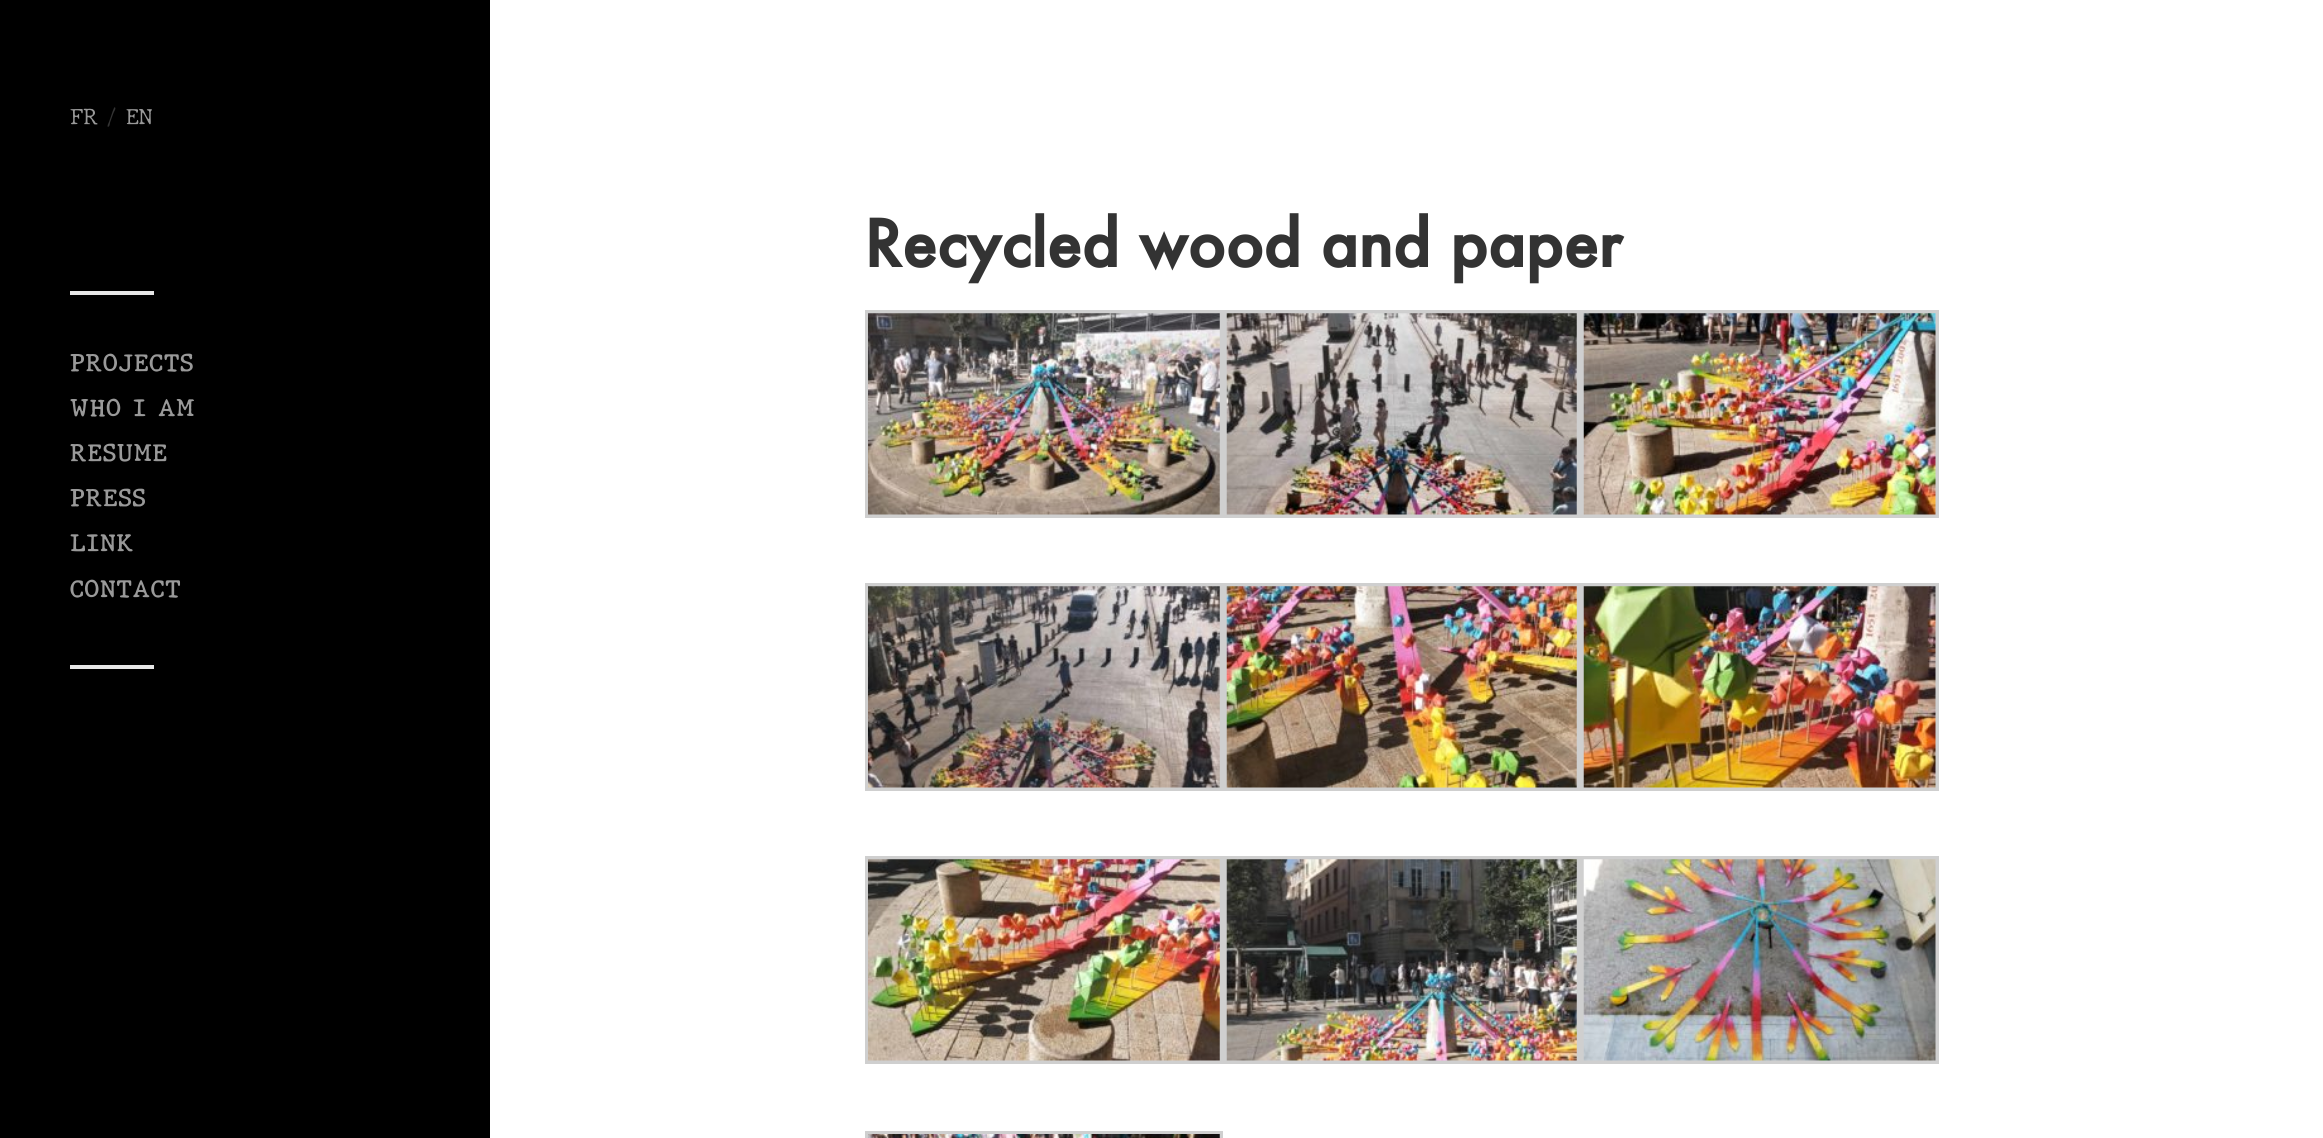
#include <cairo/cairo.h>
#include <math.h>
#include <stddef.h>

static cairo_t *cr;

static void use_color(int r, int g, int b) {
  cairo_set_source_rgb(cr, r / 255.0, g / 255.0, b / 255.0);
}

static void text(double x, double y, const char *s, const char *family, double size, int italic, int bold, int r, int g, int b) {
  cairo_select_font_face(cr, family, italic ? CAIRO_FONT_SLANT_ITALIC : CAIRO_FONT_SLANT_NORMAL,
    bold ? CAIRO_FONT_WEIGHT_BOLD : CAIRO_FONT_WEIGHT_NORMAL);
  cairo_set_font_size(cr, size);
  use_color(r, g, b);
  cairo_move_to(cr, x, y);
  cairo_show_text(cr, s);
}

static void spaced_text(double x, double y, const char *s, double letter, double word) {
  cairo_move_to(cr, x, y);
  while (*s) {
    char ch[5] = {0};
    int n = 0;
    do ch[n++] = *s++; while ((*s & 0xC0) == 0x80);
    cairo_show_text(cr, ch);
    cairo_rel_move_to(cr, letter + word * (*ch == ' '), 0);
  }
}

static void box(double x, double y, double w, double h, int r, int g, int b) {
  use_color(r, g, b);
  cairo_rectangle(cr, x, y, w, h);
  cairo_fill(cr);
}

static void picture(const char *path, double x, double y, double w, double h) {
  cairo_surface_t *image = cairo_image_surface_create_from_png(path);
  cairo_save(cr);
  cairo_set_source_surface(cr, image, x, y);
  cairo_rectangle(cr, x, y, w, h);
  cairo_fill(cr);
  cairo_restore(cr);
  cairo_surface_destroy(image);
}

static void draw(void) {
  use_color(255, 255, 255);
  cairo_paint(cr);
  box(0, 0, 490, 1138, 0, 0, 0);
  box(70, 291, 84, 4, 231, 231, 231);
  box(70, 665, 84, 4, 231, 231, 231);
  cairo_rectangle(cr, 867, 312, 354, 204);
  use_color(207, 207, 207);
  cairo_set_line_width(cr, 4);
  cairo_stroke(cr);
  picture("img_01.png", 868, 313, 352, 202);
  cairo_rectangle(cr, 1225, 312, 353, 204);
  cairo_stroke(cr);
  picture("img_02.png", 1226, 313, 351, 202);
  cairo_rectangle(cr, 1582, 312, 355, 204);
  cairo_stroke(cr);
  picture("img_03.png", 1583, 313, 353, 202);
  cairo_rectangle(cr, 867, 585, 354, 204);
  cairo_stroke(cr);
  picture("img_04.png", 868, 586, 352, 202);
  cairo_rectangle(cr, 1225, 585, 353, 204);
  cairo_stroke(cr);
  picture("img_05.png", 1226, 586, 351, 202);
  cairo_rectangle(cr, 1582, 585, 355, 204);
  cairo_stroke(cr);
  picture("img_06.png", 1583, 586, 353, 202);
  cairo_rectangle(cr, 867, 858, 354, 204);
  cairo_stroke(cr);
  picture("img_07.png", 868, 859, 352, 202);
  cairo_rectangle(cr, 1225, 858, 353, 204);
  cairo_stroke(cr);
  picture("img_08.png", 1226, 859, 351, 202);
  cairo_rectangle(cr, 1582, 858, 355, 204);
  cairo_stroke(cr);
  picture("img_09.png", 1583, 859, 353, 202);
  cairo_rectangle(cr, 867, 1133, 354, 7);
  cairo_stroke(cr);
  picture("img_10.png", 868, 1134, 352, 4);
  text(70, 124, "FR", "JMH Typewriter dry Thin", 21, 0, 0, 153, 153, 153);
  text(107, 124, "/", "JMH Typewriter dry Thin", 21, 0, 0, 51, 51, 51);
  text(126, 124, "EN", "JMH Typewriter dry Thin", 21, 0, 0, 153, 153, 153);
  cairo_select_font_face(cr, "JMH Typewriter dry", CAIRO_FONT_SLANT_NORMAL, CAIRO_FONT_WEIGHT_BOLD);
  cairo_set_font_size(cr, 22.5);
  spaced_text(70, 371, "PROJECTS", 1.75, 0);
  spaced_text(70, 416, "WHO I AM", 1.75, 0);
  spaced_text(70, 461, "RESUME", 1.75, 0);
  spaced_text(70, 506, "PRESS", 1.75, 0);
  spaced_text(70, 551, "LINK", 1.75, 0);
  spaced_text(70, 597, "CONTACT", 1.75, 0);
  text(864, 267, "Recycled wood and paper", "Futura", 63, 0, 1, 51, 51, 51);
}

int main(void) {
  cairo_surface_t *surface = cairo_image_surface_create(CAIRO_FORMAT_RGB24, 2323, 1138);
  cr = cairo_create(surface);
  cairo_font_options_t *options = cairo_font_options_create();
  cairo_font_options_set_hint_metrics(options, CAIRO_HINT_METRICS_OFF);
  cairo_font_options_set_hint_style(options, CAIRO_HINT_STYLE_NONE);
  cairo_set_font_options(cr, options);
  cairo_set_miter_limit(cr, 4);
  draw();
  cairo_surface_write_to_png(surface, "out.png");
  cairo_font_options_destroy(options);
  cairo_destroy(cr);
  cairo_surface_destroy(surface);
  return 0;
}
